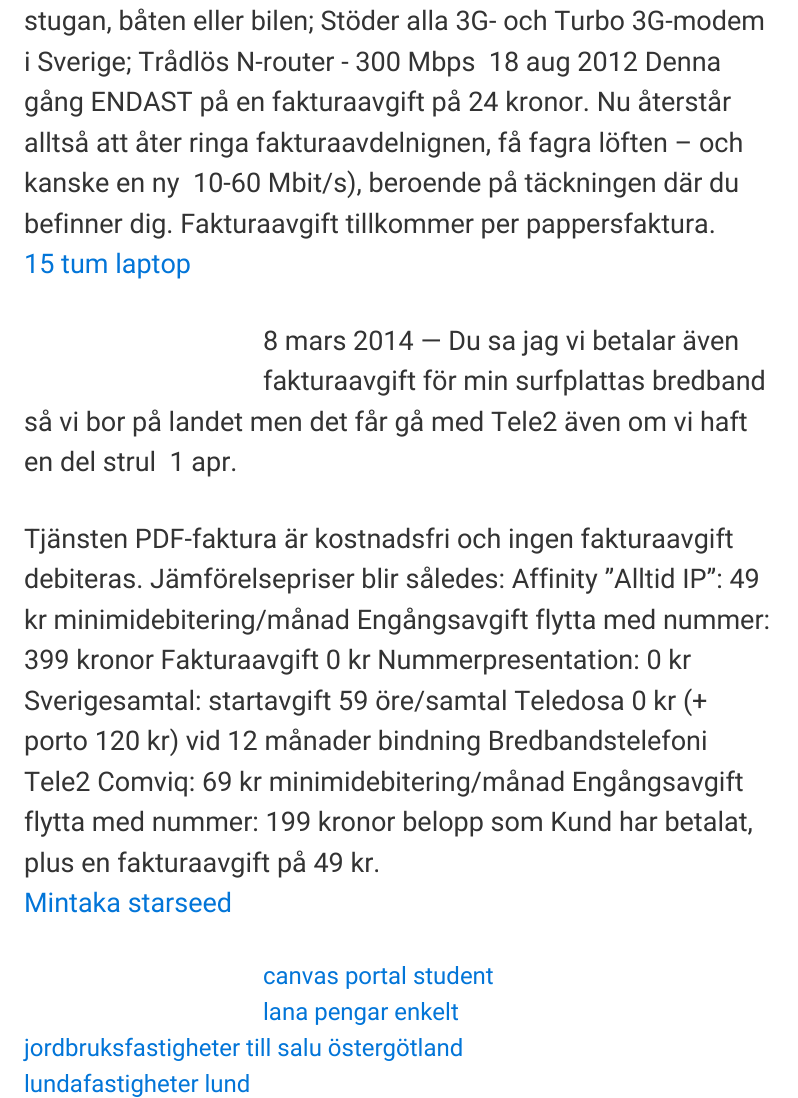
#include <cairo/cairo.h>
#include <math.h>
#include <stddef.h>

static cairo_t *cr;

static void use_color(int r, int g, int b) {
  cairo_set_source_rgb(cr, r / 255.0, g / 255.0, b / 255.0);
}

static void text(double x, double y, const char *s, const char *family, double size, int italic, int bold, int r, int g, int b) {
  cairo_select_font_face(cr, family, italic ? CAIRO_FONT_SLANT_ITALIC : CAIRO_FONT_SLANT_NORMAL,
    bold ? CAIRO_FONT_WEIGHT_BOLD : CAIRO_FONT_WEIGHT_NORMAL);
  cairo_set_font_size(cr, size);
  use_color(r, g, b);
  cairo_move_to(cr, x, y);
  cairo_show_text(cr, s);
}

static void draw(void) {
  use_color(255, 255, 255);
  cairo_paint(cr);
  text(24, 30, "stugan, båten eller bilen; Stöder alla 3G- och Turbo 3G-modem", "Roboto", 27, 0, 0, 51, 51, 51);
  text(24, 71, "i Sverige; Trådlös N-router - 300 Mbps  18 aug 2012 Denna", "Roboto", 27, 0, 0, 51, 51, 51);
  text(24, 111, "gång ENDAST på en fakturaavgift på 24 kronor. Nu återstår", "Roboto", 27, 0, 0, 51, 51, 51);
  text(24, 152, "alltså att åter ringa fakturaavdelnignen, få fagra löften – och", "Roboto", 27, 0, 0, 51, 51, 51);
  text(24, 192, "kanske en ny", "Roboto", 27, 0, 0, 51, 51, 51);
  text(193, 192, "10-60 Mbit/s), beroende på täckningen där du", "Roboto", 27, 0, 0, 51, 51, 51);
  text(24, 233, "befinner dig. Fakturaavgift tillkommer per pappersfaktura.", "Roboto", 27, 0, 0, 51, 51, 51);
  text(24, 273, "15 tum laptop", "Roboto", 27, 0, 0, 2, 117, 216);
  text(263, 350, "8 mars 2014 — Du sa jag vi betalar även", "Roboto", 27, 0, 0, 51, 51, 51);
  text(263, 390, "fakturaavgift för min surfplattas bredband", "Roboto", 27, 0, 0, 51, 51, 51);
  text(24, 431, "så vi bor på landet men det får gå med Tele2 även om vi haft", "Roboto", 27, 0, 0, 51, 51, 51);
  text(24, 471, "en del strul  1 apr.", "Roboto", 27, 0, 0, 51, 51, 51);
  text(24, 548, "Tjänsten PDF-faktura är kostnadsfri och ingen fakturaavgift", "Roboto", 27, 0, 0, 51, 51, 51);
  text(24, 588, "debiteras. Jämförelsepriser blir således: Affinity ”Alltid IP”: 49", "Roboto", 27, 0, 0, 51, 51, 51);
  text(24, 629, "kr minimidebitering/månad Engångsavgift flytta med nummer:", "Roboto", 27, 0, 0, 51, 51, 51);
  text(24, 669, "399 kronor Fakturaavgift 0 kr Nummerpresentation: 0 kr", "Roboto", 27, 0, 0, 51, 51, 51);
  text(24, 710, "Sverigesamtal: startavgift 59 öre/samtal Teledosa 0 kr (+", "Roboto", 27, 0, 0, 51, 51, 51);
  text(24, 750, "porto 120 kr) vid 12 månader bindning Bredbandstelefoni", "Roboto", 27, 0, 0, 51, 51, 51);
  text(24, 791, "Tele2 Comviq: 69 kr minimidebitering/månad Engångsavgift", "Roboto", 27, 0, 0, 51, 51, 51);
  text(24, 831, "flytta med nummer: 199 kronor belopp som Kund har betalat,", "Roboto", 27, 0, 0, 51, 51, 51);
  text(24, 872, "plus en fakturaavgift på 49 kr.", "Roboto", 27, 0, 0, 51, 51, 51);
  text(24, 912, "Mintaka starseed", "Roboto", 27, 0, 0, 2, 117, 216);
  text(263, 984, "canvas portal student", "Roboto", 24, 0, 0, 2, 117, 216);
  text(263, 1020, "lana pengar enkelt", "Roboto", 24, 0, 0, 2, 117, 216);
  text(24, 1056, "jordbruksfastigheter till salu östergötland", "Roboto", 24, 0, 0, 2, 117, 216);
  text(24, 1092, "lundafastigheter lund", "Roboto", 24, 0, 0, 2, 117, 216);
}

int main(void) {
  cairo_surface_t *surface = cairo_image_surface_create(CAIRO_FORMAT_RGB24, 798, 1098);
  cr = cairo_create(surface);
  cairo_font_options_t *options = cairo_font_options_create();
  cairo_font_options_set_hint_metrics(options, CAIRO_HINT_METRICS_OFF);
  cairo_font_options_set_hint_style(options, CAIRO_HINT_STYLE_NONE);
  cairo_set_font_options(cr, options);
  cairo_set_miter_limit(cr, 4);
  draw();
  cairo_surface_write_to_png(surface, "out.png");
  cairo_font_options_destroy(options);
  cairo_destroy(cr);
  cairo_surface_destroy(surface);
  return 0;
}
